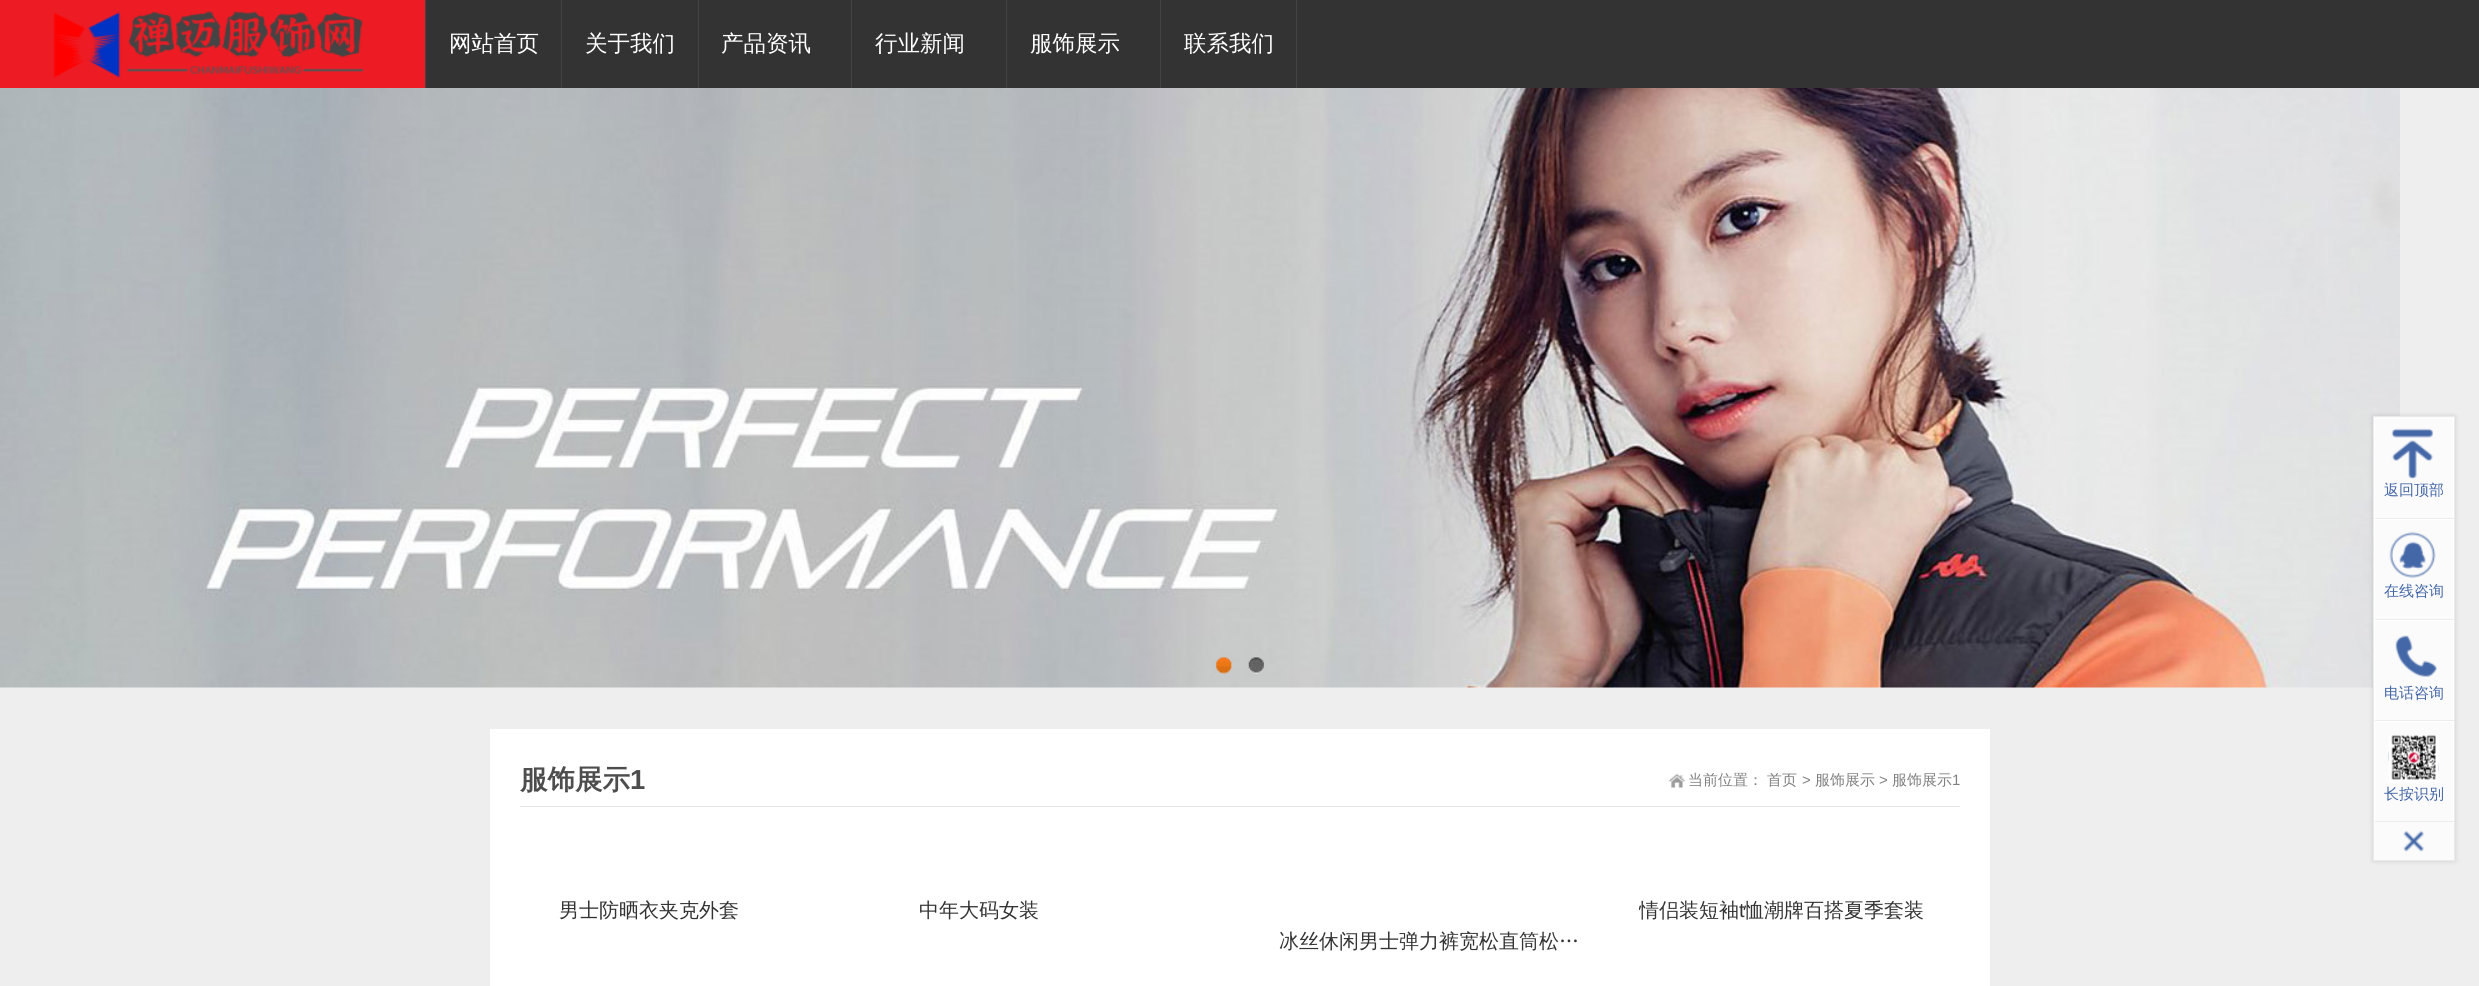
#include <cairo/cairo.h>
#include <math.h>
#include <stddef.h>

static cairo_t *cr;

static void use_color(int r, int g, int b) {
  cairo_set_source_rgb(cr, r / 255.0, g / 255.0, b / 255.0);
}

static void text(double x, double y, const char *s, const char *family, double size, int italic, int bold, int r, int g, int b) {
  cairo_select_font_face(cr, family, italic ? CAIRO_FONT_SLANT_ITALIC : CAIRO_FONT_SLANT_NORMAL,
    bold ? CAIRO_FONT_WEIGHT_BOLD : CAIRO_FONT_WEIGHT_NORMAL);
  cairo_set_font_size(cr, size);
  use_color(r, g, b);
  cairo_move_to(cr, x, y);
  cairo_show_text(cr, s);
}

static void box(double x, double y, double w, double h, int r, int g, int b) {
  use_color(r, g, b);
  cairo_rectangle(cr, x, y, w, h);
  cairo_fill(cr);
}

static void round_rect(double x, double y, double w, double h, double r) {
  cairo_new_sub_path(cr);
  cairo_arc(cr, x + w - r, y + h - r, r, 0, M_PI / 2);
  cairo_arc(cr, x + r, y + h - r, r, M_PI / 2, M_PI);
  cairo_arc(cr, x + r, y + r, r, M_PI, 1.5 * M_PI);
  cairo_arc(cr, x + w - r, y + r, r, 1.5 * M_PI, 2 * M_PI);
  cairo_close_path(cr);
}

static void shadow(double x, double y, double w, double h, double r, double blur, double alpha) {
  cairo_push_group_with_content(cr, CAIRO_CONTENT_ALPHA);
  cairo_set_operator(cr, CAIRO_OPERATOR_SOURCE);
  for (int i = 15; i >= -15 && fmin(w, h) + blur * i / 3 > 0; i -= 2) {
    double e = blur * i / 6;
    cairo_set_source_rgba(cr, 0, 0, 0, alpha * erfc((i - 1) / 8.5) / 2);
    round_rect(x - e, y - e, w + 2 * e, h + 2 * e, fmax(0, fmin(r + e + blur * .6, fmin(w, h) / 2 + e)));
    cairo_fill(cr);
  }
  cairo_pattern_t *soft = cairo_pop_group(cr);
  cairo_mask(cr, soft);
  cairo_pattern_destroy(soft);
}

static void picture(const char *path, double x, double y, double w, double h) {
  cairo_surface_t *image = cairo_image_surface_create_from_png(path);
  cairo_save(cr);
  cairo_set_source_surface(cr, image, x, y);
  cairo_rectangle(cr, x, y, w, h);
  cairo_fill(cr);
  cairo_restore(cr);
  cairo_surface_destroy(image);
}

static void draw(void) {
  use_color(238, 238, 238);
  cairo_paint(cr);
  box(426, 0, 2053, 88, 51, 51, 51);
  box(0, 0, 425, 88, 237, 27, 36);
  box(425, 0, 1, 88, 68, 68, 68);
  picture("img_01.png", 53, 11, 311, 67);
  box(561, 0, 1, 88, 68, 68, 68);
  box(698, 0, 1, 88, 68, 68, 68);
  box(851, 0, 1, 88, 68, 68, 68);
  box(1006, 0, 1, 88, 68, 68, 68);
  box(1160, 0, 1, 88, 68, 68, 68);
  box(1296, 0, 1, 88, 68, 68, 68);
  picture("img_02.png", 0, 88, 2400, 600);
  picture("img_03.png", 1216, 657, 16, 17);
  picture("img_04.png", 1248, 657, 16, 17);
  use_color(0, 0, 0);
  shadow(2373, 416, 82, 445, 0, 2.5, 0.14);
  use_color(251, 251, 251);
  cairo_rectangle(cr, 2373.5, 416.5, 81, 444);
  cairo_fill_preserve(cr);
  use_color(234, 234, 234);
  cairo_set_line_width(cr, 1);
  cairo_stroke(cr);
  box(2374, 418, 80, 1, 255, 255, 255);
  box(2453, 418, 1, 101, 255, 255, 255);
  box(2374, 518, 80, 1, 237, 236, 236);
  box(2374, 418, 1, 101, 255, 255, 255);
  picture("img_05.png", 2391, 428, 42, 51);
  box(2374, 519, 80, 1, 255, 255, 255);
  box(2453, 519, 1, 101, 255, 255, 255);
  box(2374, 619, 80, 1, 237, 236, 236);
  box(2374, 519, 1, 101, 255, 255, 255);
  picture("img_06.png", 2389, 531, 47, 47);
  box(2374, 620, 80, 1, 255, 255, 255);
  box(2453, 620, 1, 101, 255, 255, 255);
  box(2374, 720, 80, 1, 237, 236, 236);
  box(2374, 620, 1, 101, 255, 255, 255);
  picture("img_07.png", 2395, 635, 42, 42);
  box(2374, 721, 80, 1, 255, 255, 255);
  box(2453, 721, 1, 102, 255, 255, 255);
  box(2374, 821, 80, 1, 237, 236, 236);
  box(2374, 721, 1, 102, 255, 255, 255);
  picture("img_08.png", 2388, 751, 51, 32);
  picture("img_09.png", 2388, 735, 51, 48);
  picture("img_10.png", 2403, 830, 22, 22);
  box(490, 729, 1500, 257, 255, 255, 255);
  box(520, 806, 1440, 1, 229, 229, 229);
  picture("img_11.png", 1668, 773, 17, 15);
  text(449, 51, "网站首页", "WenQuanYi Zen Hei Medium", 22.5, 0, 0, 255, 255, 255);
  text(585, 51, "关于我们", "WenQuanYi Zen Hei Medium", 22.5, 0, 0, 255, 255, 255);
  text(721, 51, "产品资讯", "WenQuanYi Zen Hei Medium", 22.5, 0, 0, 255, 255, 255);
  text(875, 51, "行业新闻", "WenQuanYi Zen Hei Medium", 22.5, 0, 0, 255, 255, 255);
  text(1030, 51, "服饰展示", "WenQuanYi Zen Hei Medium", 22.5, 0, 0, 255, 255, 255);
  text(1184, 51, "联系我们", "WenQuanYi Zen Hei Medium", 22.5, 0, 0, 255, 255, 255);
  text(2384, 495, "返回顶部", "WenQuanYi Zen Hei Medium", 15, 0, 0, 68, 103, 167);
  text(2384, 596, "在线咨询", "WenQuanYi Zen Hei Medium", 15, 0, 0, 68, 103, 167);
  text(2384, 698, "电话咨询", "WenQuanYi Zen Hei Medium", 15, 0, 0, 68, 103, 167);
  text(2384, 799, "长按识别", "WenQuanYi Zen Hei Medium", 15, 0, 0, 68, 103, 167);
  text(520, 789, "服饰展示", "WenQuanYi Zen Hei", 27.5, 0, 1, 77, 77, 77);
  text(630, 789, "1", "Liberation Sans", 27.5, 0, 1, 77, 77, 77);
  text(1688, 785, "当前位置：", "WenQuanYi Zen Hei Medium", 15, 0, 0, 128, 128, 128);
  text(1767, 785, "首页", "WenQuanYi Zen Hei Medium", 15, 0, 0, 128, 128, 128);
  text(1802, 785, ">", "Liberation Sans", 15, 0, 0, 128, 128, 128);
  text(1815, 785, "服饰展示", "WenQuanYi Zen Hei Medium", 15, 0, 0, 128, 128, 128);
  text(1879, 785, ">", "Liberation Sans", 15, 0, 0, 128, 128, 128);
  text(1892, 785, "服饰展示", "WenQuanYi Zen Hei Medium", 15, 0, 0, 128, 128, 128);
  text(1952, 785, "1", "Liberation Sans", 15, 0, 0, 128, 128, 128);
  text(559, 917, "男士防晒衣夹克外套", "WenQuanYi Zen Hei Medium", 20, 0, 0, 51, 51, 51);
  text(919, 917, "中年大码女装", "WenQuanYi Zen Hei Medium", 20, 0, 0, 51, 51, 51);
  cairo_save(cr);
  cairo_rectangle(cr, 1639, 895, 311, 30);
  cairo_clip(cr);
  text(1639, 917, "情侣装短袖", "WenQuanYi Zen Hei Medium", 20, 0, 0, 51, 51, 51);
  cairo_restore(cr);
  text(1739, 917, "t", "Liberation Sans", 20, 0, 0, 51, 51, 51);
  text(1744, 917, "恤潮牌百搭夏季套装", "WenQuanYi Zen Hei Medium", 20, 0, 0, 51, 51, 51);
  text(1279, 948, "冰丝休闲男士弹力裤宽松直筒松…", "WenQuanYi Zen Hei Medium", 20, 0, 0, 51, 51, 51);
}

int main(void) {
  cairo_surface_t *surface = cairo_image_surface_create(CAIRO_FORMAT_RGB24, 2479, 986);
  cr = cairo_create(surface);
  cairo_font_options_t *options = cairo_font_options_create();
  cairo_font_options_set_hint_metrics(options, CAIRO_HINT_METRICS_OFF);
  cairo_font_options_set_hint_style(options, CAIRO_HINT_STYLE_NONE);
  cairo_set_font_options(cr, options);
  cairo_set_miter_limit(cr, 4);
  draw();
  cairo_surface_write_to_png(surface, "out.png");
  cairo_font_options_destroy(options);
  cairo_destroy(cr);
  cairo_surface_destroy(surface);
  return 0;
}
